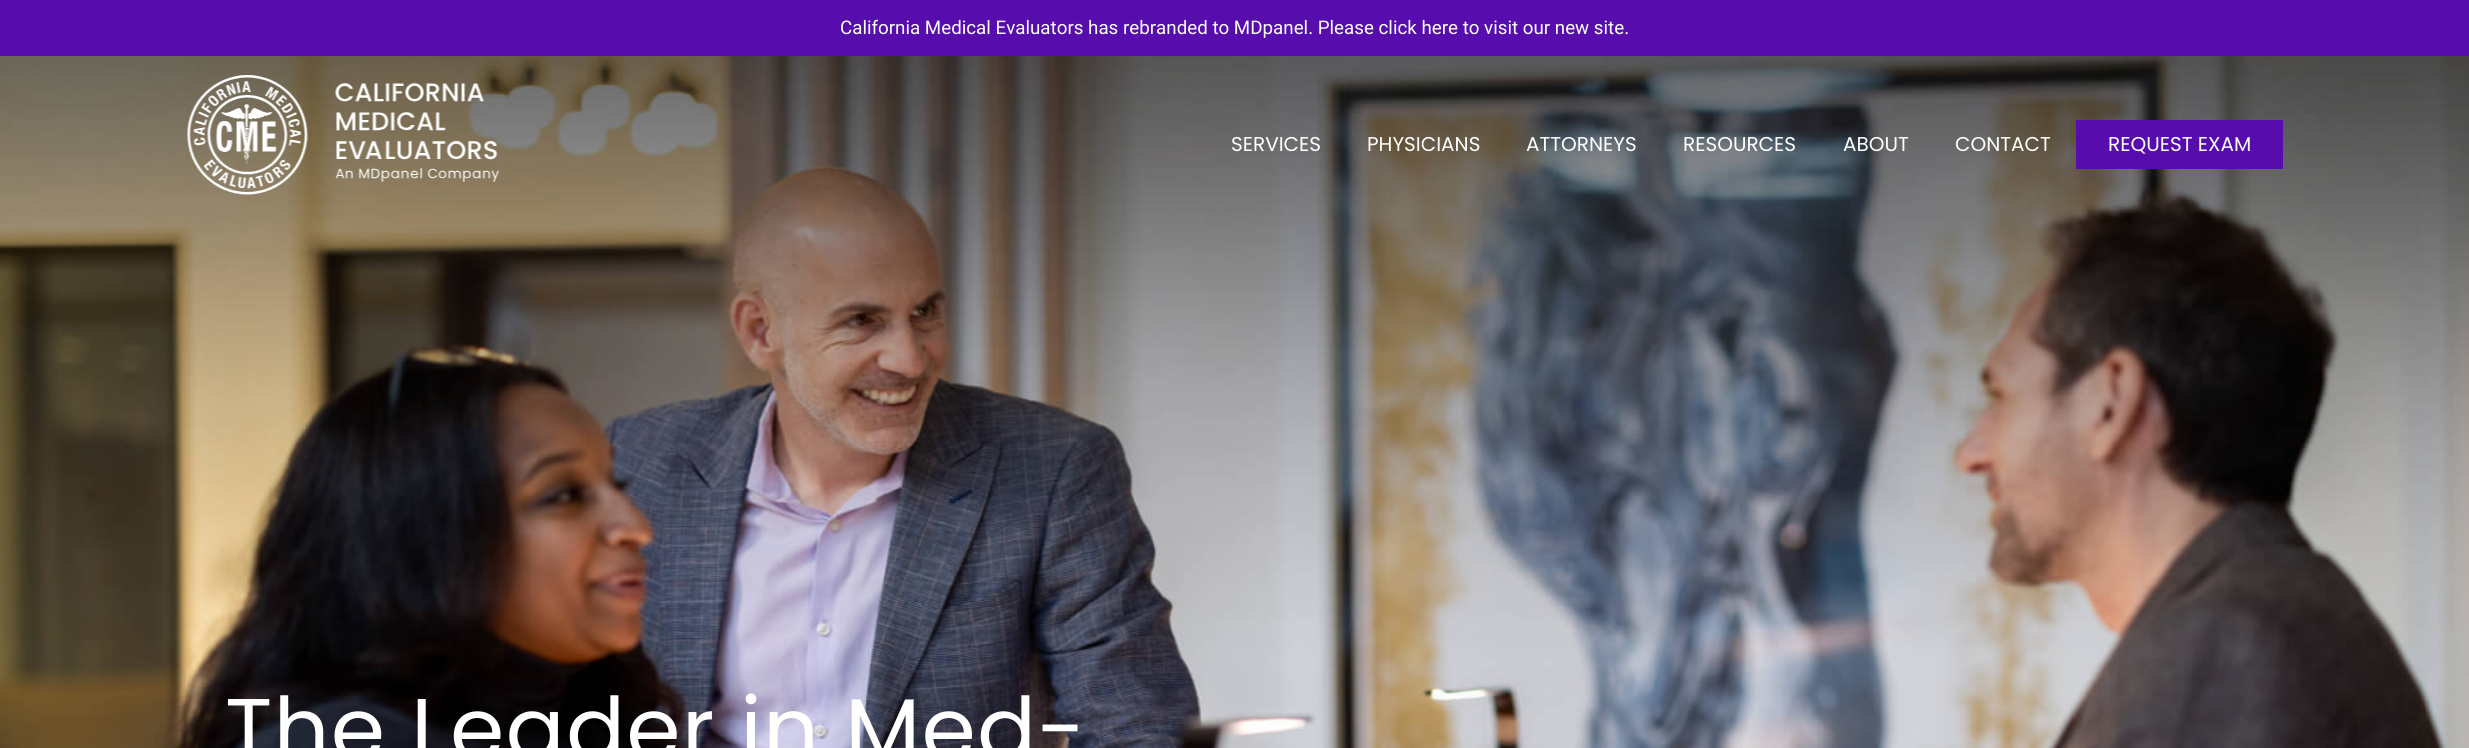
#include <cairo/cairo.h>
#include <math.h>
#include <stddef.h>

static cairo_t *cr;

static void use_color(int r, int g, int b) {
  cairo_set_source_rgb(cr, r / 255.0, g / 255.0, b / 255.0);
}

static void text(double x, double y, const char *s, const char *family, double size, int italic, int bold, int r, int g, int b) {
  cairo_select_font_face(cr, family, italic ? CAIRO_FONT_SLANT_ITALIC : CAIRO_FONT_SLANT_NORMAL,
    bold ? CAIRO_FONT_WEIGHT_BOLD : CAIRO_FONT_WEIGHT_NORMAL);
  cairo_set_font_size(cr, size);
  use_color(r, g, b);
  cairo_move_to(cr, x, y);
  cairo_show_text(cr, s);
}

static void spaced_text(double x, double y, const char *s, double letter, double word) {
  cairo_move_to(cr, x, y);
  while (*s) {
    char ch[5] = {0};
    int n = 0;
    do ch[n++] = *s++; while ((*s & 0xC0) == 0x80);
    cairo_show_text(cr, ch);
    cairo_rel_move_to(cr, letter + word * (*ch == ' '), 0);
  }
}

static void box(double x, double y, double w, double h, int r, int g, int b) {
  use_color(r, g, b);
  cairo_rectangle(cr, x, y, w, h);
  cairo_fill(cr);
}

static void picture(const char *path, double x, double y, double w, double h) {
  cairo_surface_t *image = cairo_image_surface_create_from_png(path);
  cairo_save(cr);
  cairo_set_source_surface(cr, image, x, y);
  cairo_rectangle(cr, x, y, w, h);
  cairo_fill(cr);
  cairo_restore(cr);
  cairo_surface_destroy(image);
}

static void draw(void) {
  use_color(255, 255, 255);
  cairo_paint(cr);
  box(0, 0, 2469, 56, 87, 12, 173);
  picture("img_03.png", 171, 56, 2298, 692);
  picture("img_01.png", 187, 75, 313, 120);
  box(2076, 120, 207, 49, 87, 12, 173);
  picture("img_02.png", 0, 56, 171, 692);
  text(840, 34, "California Medical Evaluators has rebranded to MDpanel. Please click here to visit our new site.", "Roboto", 18.75, 0, 0, 255, 255, 255);
  text(1231, 151, "SERVICES", "Poppins", 20, 0, 0, 255, 255, 255);
  text(1367, 151, "PHYSICIANS", "Poppins", 20, 0, 0, 255, 255, 255);
  text(1526, 151, "ATTORNEYS", "Poppins", 20, 0, 0, 255, 255, 255);
  text(1683, 151, "RESOURCES", "Poppins", 20, 0, 0, 255, 255, 255);
  text(1843, 151, "ABOUT", "Poppins", 20, 0, 0, 255, 255, 255);
  text(1955, 151, "CONTACT", "Poppins", 20, 0, 0, 255, 255, 255);
  text(2108, 151, "REQUEST EXAM", "Poppins", 20, 0, 0, 255, 255, 255);
  cairo_set_font_size(cr, 87.5);
  spaced_text(225, 760, "The Leader in Med-", 1.25, 0);
}

int main(void) {
  cairo_surface_t *surface = cairo_image_surface_create(CAIRO_FORMAT_RGB24, 2469, 748);
  cr = cairo_create(surface);
  cairo_font_options_t *options = cairo_font_options_create();
  cairo_font_options_set_hint_metrics(options, CAIRO_HINT_METRICS_OFF);
  cairo_font_options_set_hint_style(options, CAIRO_HINT_STYLE_NONE);
  cairo_set_font_options(cr, options);
  cairo_set_miter_limit(cr, 4);
  draw();
  cairo_surface_write_to_png(surface, "out.png");
  cairo_font_options_destroy(options);
  cairo_destroy(cr);
  cairo_surface_destroy(surface);
  return 0;
}
